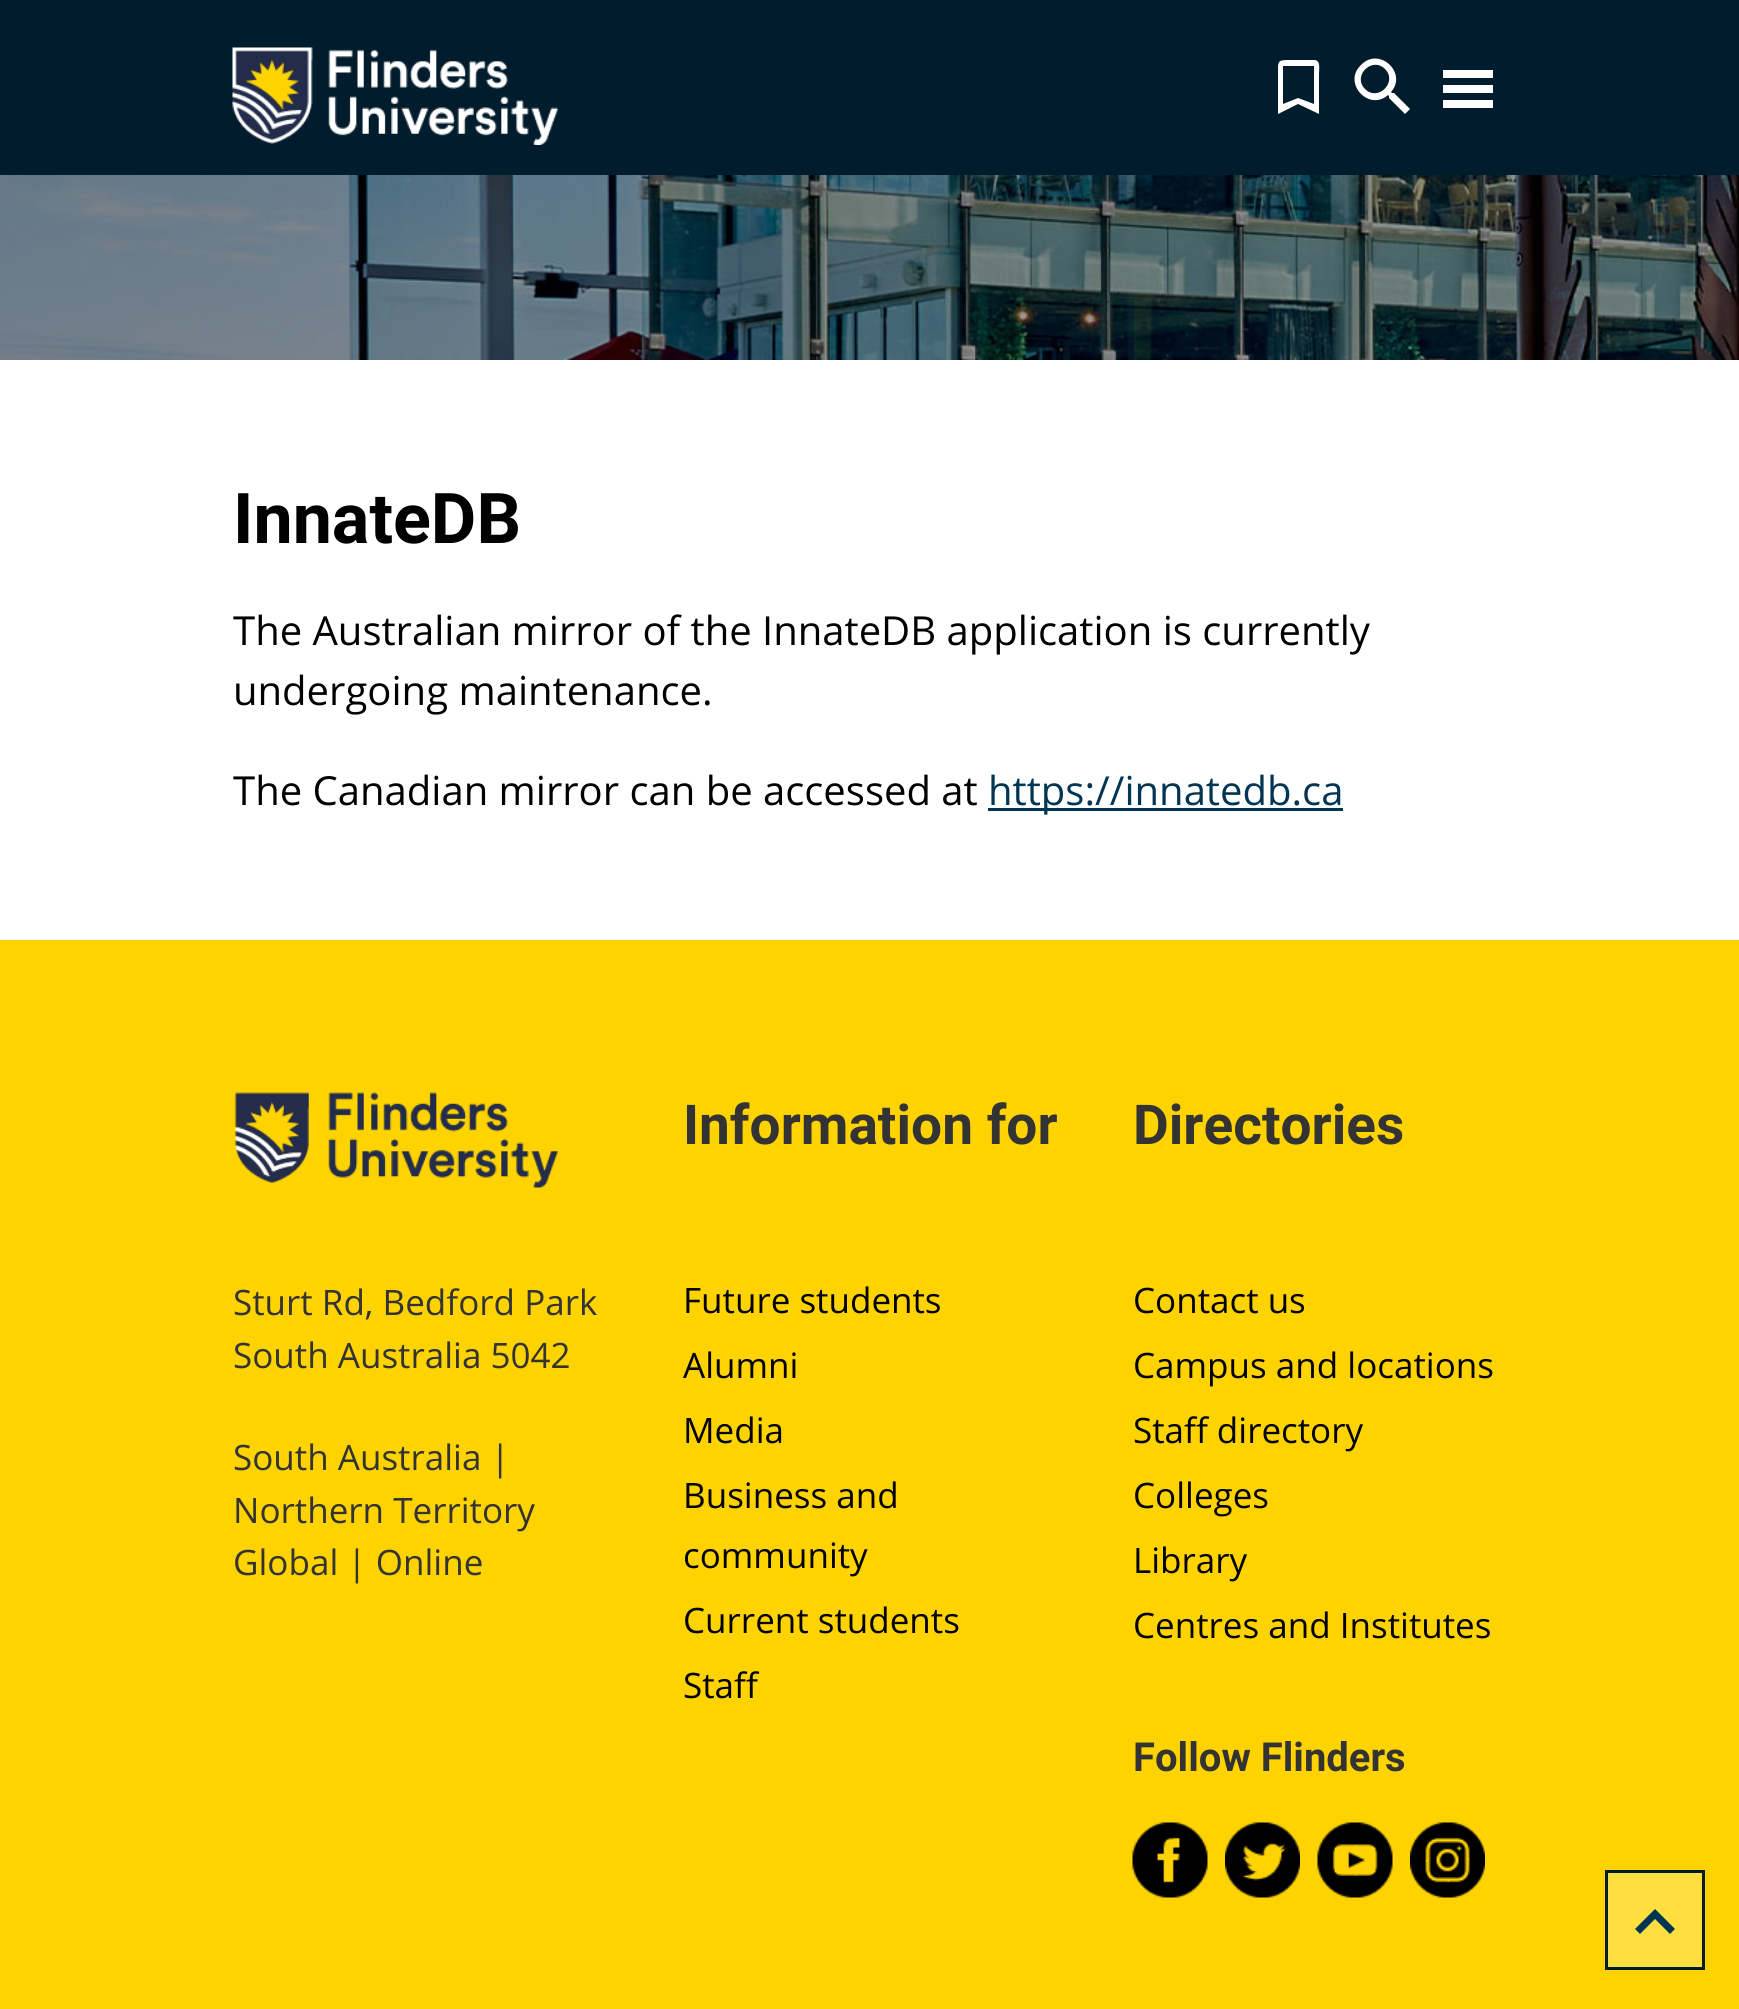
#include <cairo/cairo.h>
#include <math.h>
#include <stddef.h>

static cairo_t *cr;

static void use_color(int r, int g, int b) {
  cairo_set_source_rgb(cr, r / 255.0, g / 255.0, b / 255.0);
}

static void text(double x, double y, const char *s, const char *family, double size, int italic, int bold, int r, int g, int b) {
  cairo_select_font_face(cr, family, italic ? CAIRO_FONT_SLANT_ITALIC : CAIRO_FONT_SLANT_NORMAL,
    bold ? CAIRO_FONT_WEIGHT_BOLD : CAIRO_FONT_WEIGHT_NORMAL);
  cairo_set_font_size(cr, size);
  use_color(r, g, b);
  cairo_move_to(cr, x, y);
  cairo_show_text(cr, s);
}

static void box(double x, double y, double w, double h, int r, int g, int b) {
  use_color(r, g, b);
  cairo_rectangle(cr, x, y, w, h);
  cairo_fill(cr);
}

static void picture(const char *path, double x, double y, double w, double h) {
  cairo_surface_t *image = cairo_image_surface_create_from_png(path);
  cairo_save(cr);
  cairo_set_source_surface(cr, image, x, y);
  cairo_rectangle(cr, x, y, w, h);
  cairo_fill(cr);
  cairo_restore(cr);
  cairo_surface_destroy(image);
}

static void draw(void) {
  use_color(255, 255, 255);
  cairo_paint(cr);
  box(0, 0, 1739, 175, 1, 28, 44);
  picture("img_01.png", 232, 47, 326, 98);
  use_color(255, 255, 255);
  cairo_new_path(cr);
  cairo_move_to(cr, 1314, 104);
  cairo_line_to(cr, 1314, 66);
  cairo_line_to(cr, 1283, 66);
  cairo_line_to(cr, 1283, 104);
  cairo_line_to(cr, 1298, 98);
  cairo_close_path(cr);
  cairo_move_to(cr, 1314, 60);
  cairo_curve_to(cr, 1321, 60, 1319, 69, 1319, 74);
  cairo_line_to(cr, 1319, 114);
  cairo_line_to(cr, 1298, 104);
  cairo_line_to(cr, 1278, 114);
  cairo_line_to(cr, 1278, 74);
  cairo_curve_to(cr, 1278, 62, 1277, 60, 1288, 60);
  cairo_close_path(cr);
  cairo_fill(cr);
  cairo_new_path(cr);
  cairo_move_to(cr, 1365, 89);
  cairo_curve_to(cr, 1378, 102, 1398, 82, 1385, 69);
  cairo_curve_to(cr, 1372, 56, 1352, 76, 1365, 89);
  cairo_close_path(cr);
  cairo_move_to(cr, 1394, 93);
  cairo_line_to(cr, 1410, 109);
  cairo_line_to(cr, 1405, 114);
  cairo_line_to(cr, 1389, 98);
  cairo_line_to(cr, 1389, 96);
  cairo_line_to(cr, 1388, 95);
  cairo_curve_to(cr, 1369, 112, 1342, 83, 1361, 65);
  cairo_curve_to(cr, 1379, 46, 1408, 73, 1391, 92);
  cairo_line_to(cr, 1392, 93);
  cairo_close_path(cr);
  cairo_fill(cr);
  box(1443, 70, 50, 8, 255, 255, 255);
  box(1443, 85, 50, 8, 255, 255, 255);
  box(1443, 100, 50, 8, 255, 255, 255);
  picture("img_02.png", 0, 175, 1739, 185);
  box(988, 808, 355, 3, 1, 53, 84);
  box(0, 940, 1739, 1069, 255, 211, 0);
  picture("img_03.png", 234, 1092, 324, 96);
  picture("img_04.png", 1132, 1822, 76, 76);
  picture("img_05.png", 1225, 1822, 75, 76);
  picture("img_06.png", 1317, 1822, 76, 76);
  picture("img_07.png", 1410, 1822, 75, 76);
  use_color(255, 222, 64);
  cairo_rectangle(cr, 1606.5, 1871.5, 97, 97);
  cairo_fill_preserve(cr);
  use_color(1, 28, 44);
  cairo_set_line_width(cr, 3);
  cairo_stroke(cr);
  use_color(1, 53, 84);
  cairo_new_path(cr);
  cairo_move_to(cr, 1640, 1934);
  cairo_line_to(cr, 1635, 1929);
  cairo_line_to(cr, 1655, 1909);
  cairo_line_to(cr, 1675, 1929);
  cairo_line_to(cr, 1670, 1934);
  cairo_line_to(cr, 1655, 1919);
  cairo_close_path(cr);
  cairo_fill(cr);
  text(233, 543, "InnateDB", "Roboto", 70, 0, 1, 0, 0, 0);
  text(233, 645, "The Australian mirror of the InnateDB application is currently", "Open Sans", 40, 0, 0, 0, 0, 0);
  text(233, 705, "undergoing maintenance.", "Open Sans", 40, 0, 0, 0, 0, 0);
  text(233, 805, "The Canadian mirror can be accessed at", "Open Sans", 40, 0, 0, 0, 0, 0);
  text(988, 805, "https://innatedb.ca", "Open Sans", 40, 0, 0, 1, 53, 84);
  text(233, 1315, "Sturt Rd, Bedford Park", "Open Sans", 35, 0, 0, 51, 51, 51);
  text(233, 1368, "South Australia 5042", "Open Sans", 35, 0, 0, 51, 51, 51);
  text(233, 1470, "South Australia |", "Open Sans", 35, 0, 0, 51, 51, 51);
  text(233, 1523, "Northern Territory", "Open Sans", 35, 0, 0, 51, 51, 51);
  text(233, 1575, "Global | Online", "Open Sans", 35, 0, 0, 51, 51, 51);
  text(683, 1144, "Information for", "Roboto", 55, 0, 1, 51, 51, 51);
  text(683, 1313, "Future students", "Open Sans", 35, 0, 0, 0, 0, 0);
  text(683, 1378, "Alumni", "Open Sans", 35, 0, 0, 0, 0, 0);
  text(683, 1443, "Media", "Open Sans", 35, 0, 0, 0, 0, 0);
  text(683, 1508, "Business and", "Open Sans", 35, 0, 0, 0, 0, 0);
  text(683, 1568, "community", "Open Sans", 35, 0, 0, 0, 0, 0);
  text(683, 1633, "Current students", "Open Sans", 35, 0, 0, 0, 0, 0);
  text(683, 1698, "Staff", "Open Sans", 35, 0, 0, 0, 0, 0);
  text(1133, 1144, "Directories", "Roboto", 55, 0, 1, 51, 51, 51);
  text(1133, 1313, "Contact us", "Open Sans", 35, 0, 0, 0, 0, 0);
  text(1133, 1378, "Campus and locations", "Open Sans", 35, 0, 0, 0, 0, 0);
  text(1133, 1443, "Staff directory", "Open Sans", 35, 0, 0, 0, 0, 0);
  text(1133, 1508, "Colleges", "Open Sans", 35, 0, 0, 0, 0, 0);
  text(1133, 1573, "Library", "Open Sans", 35, 0, 0, 0, 0, 0);
  text(1133, 1638, "Centres and Institutes", "Open Sans", 35, 0, 0, 0, 0, 0);
  text(1133, 1771, "Follow Flinders", "Roboto", 40, 0, 1, 51, 51, 51);
}

int main(void) {
  cairo_surface_t *surface = cairo_image_surface_create(CAIRO_FORMAT_RGB24, 1739, 2009);
  cr = cairo_create(surface);
  cairo_font_options_t *options = cairo_font_options_create();
  cairo_font_options_set_hint_metrics(options, CAIRO_HINT_METRICS_OFF);
  cairo_font_options_set_hint_style(options, CAIRO_HINT_STYLE_NONE);
  cairo_set_font_options(cr, options);
  cairo_set_miter_limit(cr, 4);
  draw();
  cairo_surface_write_to_png(surface, "out.png");
  cairo_font_options_destroy(options);
  cairo_destroy(cr);
  cairo_surface_destroy(surface);
  return 0;
}
